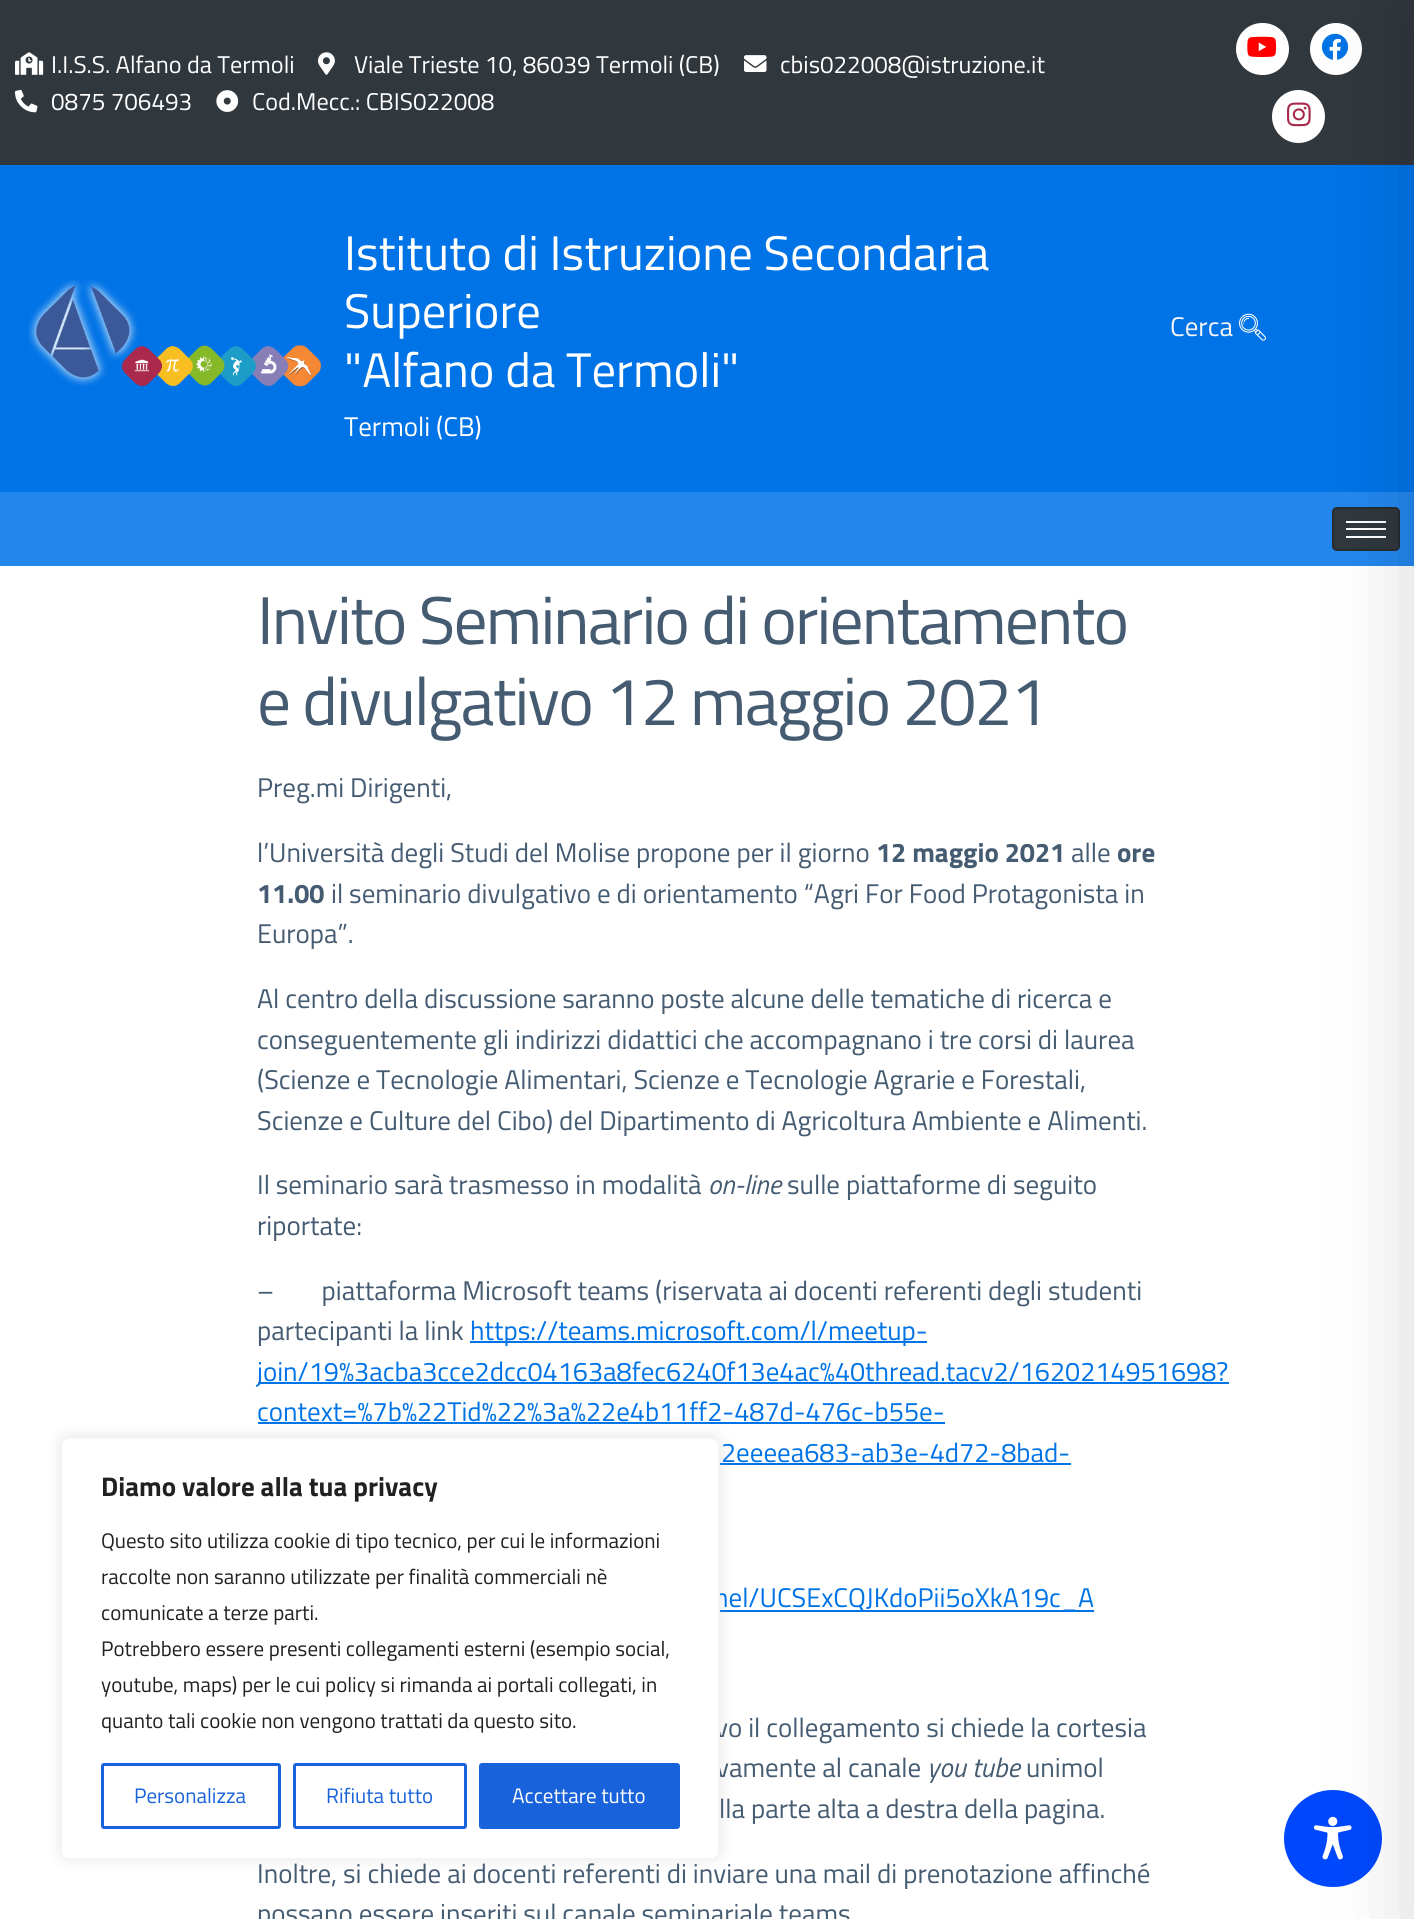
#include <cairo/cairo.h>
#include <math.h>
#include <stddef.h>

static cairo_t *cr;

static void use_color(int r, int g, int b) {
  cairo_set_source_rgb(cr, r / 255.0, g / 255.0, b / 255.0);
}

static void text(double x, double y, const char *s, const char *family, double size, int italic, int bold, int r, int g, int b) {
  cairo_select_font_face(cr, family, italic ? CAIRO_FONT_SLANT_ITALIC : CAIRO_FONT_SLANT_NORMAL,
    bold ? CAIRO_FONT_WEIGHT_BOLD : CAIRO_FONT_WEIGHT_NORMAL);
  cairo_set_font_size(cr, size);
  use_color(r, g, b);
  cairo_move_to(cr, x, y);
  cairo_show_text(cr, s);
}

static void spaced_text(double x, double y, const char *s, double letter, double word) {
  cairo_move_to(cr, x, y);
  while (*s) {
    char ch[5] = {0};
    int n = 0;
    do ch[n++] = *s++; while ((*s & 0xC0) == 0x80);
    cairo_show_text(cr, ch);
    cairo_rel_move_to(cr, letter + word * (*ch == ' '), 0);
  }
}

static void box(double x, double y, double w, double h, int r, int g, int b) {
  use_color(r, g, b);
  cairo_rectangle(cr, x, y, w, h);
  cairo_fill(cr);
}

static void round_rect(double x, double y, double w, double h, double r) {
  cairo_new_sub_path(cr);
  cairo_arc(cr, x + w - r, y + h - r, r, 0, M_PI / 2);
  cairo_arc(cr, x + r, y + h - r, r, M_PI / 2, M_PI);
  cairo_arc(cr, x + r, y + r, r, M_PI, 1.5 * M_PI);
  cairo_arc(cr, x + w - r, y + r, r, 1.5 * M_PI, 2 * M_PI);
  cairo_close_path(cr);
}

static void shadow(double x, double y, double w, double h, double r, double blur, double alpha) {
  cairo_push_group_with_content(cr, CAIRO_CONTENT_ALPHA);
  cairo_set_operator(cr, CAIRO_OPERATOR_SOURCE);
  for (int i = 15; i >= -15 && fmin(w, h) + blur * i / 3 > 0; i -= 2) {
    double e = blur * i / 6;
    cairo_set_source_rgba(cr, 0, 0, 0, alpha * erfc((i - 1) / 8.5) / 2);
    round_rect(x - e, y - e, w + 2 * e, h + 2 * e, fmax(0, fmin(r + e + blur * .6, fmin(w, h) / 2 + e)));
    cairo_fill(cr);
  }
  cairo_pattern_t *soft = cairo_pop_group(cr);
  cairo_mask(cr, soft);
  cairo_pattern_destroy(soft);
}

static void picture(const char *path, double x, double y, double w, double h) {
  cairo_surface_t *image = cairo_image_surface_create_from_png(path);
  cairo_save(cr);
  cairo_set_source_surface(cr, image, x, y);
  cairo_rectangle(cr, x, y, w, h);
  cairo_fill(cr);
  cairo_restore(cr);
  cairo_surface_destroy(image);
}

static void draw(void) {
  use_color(255, 255, 255);
  cairo_paint(cr);
  box(0, 0, 1414, 165, 48, 55, 61);
  picture("img_01.png", 15, 52, 29, 23);
  picture("img_02.png", 318, 52, 17, 23);
  picture("img_03.png", 744, 55, 23, 17);
  picture("img_04.png", 15, 89, 23, 24);
  picture("img_05.png", 216, 90, 23, 22);
  use_color(255, 255, 255);
  round_rect(1236, 23, 53, 52, 26);
  cairo_fill(cr);
  picture("img_06.png", 1247, 36, 30, 21);
  cairo_arc(cr, 1336, 49, 26, 0, 2 * M_PI);
  cairo_fill(cr);
  picture("img_07.png", 1321, 33, 28, 27);
  cairo_arc(cr, 1298.5, 116.5, 26.5, 0, 2 * M_PI);
  cairo_fill(cr);
  picture("img_08.png", 1287, 102, 24, 25);
  box(0, 165, 1414, 327, 0, 115, 230);
  picture("img_09.png", 28, 279, 294, 108);
  picture("img_10.png", 1239, 313, 27, 28);
  box(0, 492, 1414, 74, 34, 135, 237);
  use_color(48, 55, 61);
  round_rect(1332, 507, 68, 44, 5);
  cairo_fill(cr);
  round_rect(1333, 508, 66, 42, 4);
  cairo_set_source_rgba(cr, 0, 0, 0, 0.2);
  cairo_stroke(cr);
  box(1346, 521, 40, 2, 255, 255, 255);
  box(1346, 528, 40, 2, 255, 255, 255);
  box(1346, 536, 40, 2, 255, 255, 255);
  use_color(0, 72, 254);
  round_rect(1284, 1790, 98, 97, 48.5);
  cairo_fill(cr);
  picture("img_11.png", 1313, 1816, 39, 44);
  use_color(0, 0, 0);
  shadow(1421, 15, 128, 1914, 0, 45, 0.2);
  box(470, 1341, 457, 2, 0, 115, 230);
  box(258, 1382, 971, 2, 0, 115, 230);
  box(258, 1422, 687, 2, 0, 115, 230);
  box(720, 1463, 351, 2, 0, 115, 230);
  box(720, 1610, 374, 2, 0, 115, 230);
  use_color(172, 171, 171);
  shadow(60, 1436, 660, 423, 9, 7.5, 0.3);
  text(51, 73, "I.I.S.S. Alfano da Termoli", "Titillium Web", 24.25, 0, 0, 255, 255, 255);
  text(354, 73, "Viale Trieste 10, 86039 Termoli (CB)", "Titillium Web", 24.25, 0, 0, 255, 255, 255);
  text(780, 73, "cbis022008@istruzione.it", "Titillium Web", 24.25, 0, 0, 255, 255, 255);
  text(51, 110, "0875 706493", "Titillium Web", 24.25, 0, 0, 255, 255, 255);
  text(252, 110, "Cod.Mecc.: CBIS022008", "Titillium Web", 24.25, 0, 0, 255, 255, 255);
  text(344, 270, "Istituto di Istruzione Secondaria", "Titillium Web", 48.6, 0, 0, 255, 255, 255);
  text(344, 328, "Superiore", "Titillium Web", 48.6, 0, 0, 255, 255, 255);
  text(344, 387, "\"Alfano da Termoli\"", "Titillium Web", 48.6, 0, 0, 255, 255, 255);
  text(344, 436, "Termoli (CB)", "Titillium Web", 27, 0, 0, 255, 255, 255);
  text(1170, 336, "Cerca", "Titillium Web", 27, 0, 0, 245, 245, 245);
  cairo_set_font_size(cr, 67.5);
  use_color(69, 91, 113);
  spaced_text(257, 644, "Invito Seminario di orientamento", -1.8, 0);
  spaced_text(257, 725, "e divulgativo 12 maggio 2021", -1.8, 0);
  text(257, 797, "Preg.mi Dirigenti,", "Titillium Web", 27, 0, 0, 69, 91, 113);
  text(257, 862, "l’Università degli Studi del Molise propone per il giorno", "Titillium Web", 27, 0, 0, 69, 91, 113);
  text(876, 862, "12 maggio 2021", "Titillium Web", 27, 0, 1, 69, 91, 113);
  text(1071, 862, "alle", "Titillium Web", 27, 0, 0, 69, 91, 113);
  text(1117, 862, "ore", "Titillium Web", 27, 0, 1, 69, 91, 113);
  text(257, 903, "11.00", "Titillium Web", 27, 0, 1, 69, 91, 113);
  text(331, 903, "il seminario divulgativo e di orientamento “Agri For Food Protagonista in", "Titillium Web", 27, 0, 0, 69, 91, 113);
  text(257, 943, "Europa”.", "Titillium Web", 27, 0, 0, 69, 91, 113);
  text(257, 1008, "Al centro della discussione saranno poste alcune delle tematiche di ricerca e", "Titillium Web", 27, 0, 0, 69, 91, 113);
  text(257, 1049, "conseguentemente gli indirizzi didattici che accompagnano i tre corsi di laurea", "Titillium Web", 27, 0, 0, 69, 91, 113);
  text(257, 1089, "(Scienze e Tecnologie Alimentari, Scienze e Tecnologie Agrarie e Forestali,", "Titillium Web", 27, 0, 0, 69, 91, 113);
  text(257, 1130, "Scienze e Culture del Cibo) del Dipartimento di Agricoltura Ambiente e Alimenti.", "Titillium Web", 27, 0, 0, 69, 91, 113);
  text(257, 1194, "Il seminario sarà trasmesso in modalità", "Titillium Web", 27, 0, 0, 69, 91, 113);
  text(708, 1194, "on-line", "Titillium Web", 27, 1, 0, 69, 91, 113);
  text(787, 1194, "sulle piattaforme di seguito", "Titillium Web", 27, 0, 0, 69, 91, 113);
  text(257, 1235, "riportate:", "Titillium Web", 27, 0, 0, 69, 91, 113);
  text(257, 1300, "–        piattaforma Microsoft teams (riservata ai docenti referenti degli studenti", "Titillium Web", 27, 0, 0, 69, 91, 113);
  text(257, 1340, "partecipanti la link", "Titillium Web", 27, 0, 0, 69, 91, 113);
  text(470, 1340, "https://teams.microsoft.com/l/meetup-", "Titillium Web", 27, 0, 0, 0, 115, 230);
  text(257, 1381, "join/19%3acba3cce2dcc04163a8fec6240f13e4ac%40thread.tacv2/1620214951698?", "Titillium Web", 27, 0, 0, 0, 115, 230);
  text(257, 1421, "context=%7b%22Tid%22%3a%22e4b11ff2-487d-476c-b55e-", "Titillium Web", 27, 0, 0, 0, 115, 230);
  text(721, 1462, "2eeeea683-ab3e-4d72-8bad-", "Titillium Web", 27, 0, 0, 0, 115, 230);
  text(714, 1607, "nel/UCSExCQJKdoPii5oXkA19c_A", "Titillium Web", 27, 0, 0, 0, 115, 230);
  text(715, 1737, "vo il collegamento si chiede la cortesia", "Titillium Web", 27, 0, 0, 69, 91, 113);
  text(716, 1777, "vamente al canale", "Titillium Web", 27, 0, 0, 69, 91, 113);
  text(927, 1777, "you tube", "Titillium Web", 27, 1, 0, 69, 91, 113);
  text(1026, 1777, "unimol", "Titillium Web", 27, 0, 0, 69, 91, 113);
  text(719, 1818, "lla parte alta a destra della pagina.", "Titillium Web", 27, 0, 0, 69, 91, 113);
  text(257, 1883, "Inoltre, si chiede ai docenti referenti di inviare una mail di prenotazione affinché", "Titillium Web", 27, 0, 0, 69, 91, 113);
  text(257, 1923, "possano essere inseriti sul canale seminariale teams", "Titillium Web", 27, 0, 0, 69, 91, 113);
  use_color(255, 255, 255);
  round_rect(61, 1438, 658, 421, 8);
  cairo_fill_preserve(cr);
  use_color(244, 244, 244);
  cairo_stroke(cr);
  text(101, 1496, "Diamo valore alla tua privacy", "Titillium Web", 27, 0, 1, 33, 33, 33);
  text(101, 1548, "Questo sito utilizza cookie di tipo tecnico, per cui le informazioni", "Titillium Web", 21, 0, 0, 33, 33, 33);
  text(101, 1584, "raccolte non saranno utilizzate per finalità commerciali nè", "Titillium Web", 21, 0, 0, 33, 33, 33);
  text(101, 1620, "comunicate a terze parti.", "Titillium Web", 21, 0, 0, 33, 33, 33);
  text(101, 1656, "Potrebbero essere presenti collegamenti esterni (esempio social,", "Titillium Web", 21, 0, 0, 33, 33, 33);
  text(101, 1692, "youtube, maps) per le cui policy si rimanda ai portali collegati, in", "Titillium Web", 21, 0, 0, 33, 33, 33);
  text(101, 1728, "quanto tali cookie non vengono trattati da questo sito.", "Titillium Web", 21, 0, 0, 33, 33, 33);
  round_rect(102.5, 1764.5, 177, 63, 1.5);
  use_color(24, 99, 220);
  cairo_set_line_width(cr, 3);
  cairo_stroke(cr);
  text(134, 1803, "Personalizza", "Titillium Web", 21, 0, 0, 24, 99, 220);
  round_rect(294.5, 1764.5, 171, 63, 1.5);
  cairo_stroke(cr);
  text(326, 1803, "Rifiuta tutto", "Titillium Web", 21, 0, 0, 24, 99, 220);
  round_rect(480.5, 1764.5, 198, 63, 1.5);
  cairo_fill_preserve(cr);
  cairo_stroke(cr);
  text(512, 1803, "Accettare tutto", "Titillium Web", 21, 0, 0, 255, 255, 255);
}

int main(void) {
  cairo_surface_t *surface = cairo_image_surface_create(CAIRO_FORMAT_RGB24, 1414, 1919);
  cr = cairo_create(surface);
  cairo_font_options_t *options = cairo_font_options_create();
  cairo_font_options_set_hint_metrics(options, CAIRO_HINT_METRICS_OFF);
  cairo_font_options_set_hint_style(options, CAIRO_HINT_STYLE_NONE);
  cairo_set_font_options(cr, options);
  cairo_set_miter_limit(cr, 4);
  draw();
  cairo_surface_write_to_png(surface, "out.png");
  cairo_font_options_destroy(options);
  cairo_destroy(cr);
  cairo_surface_destroy(surface);
  return 0;
}
